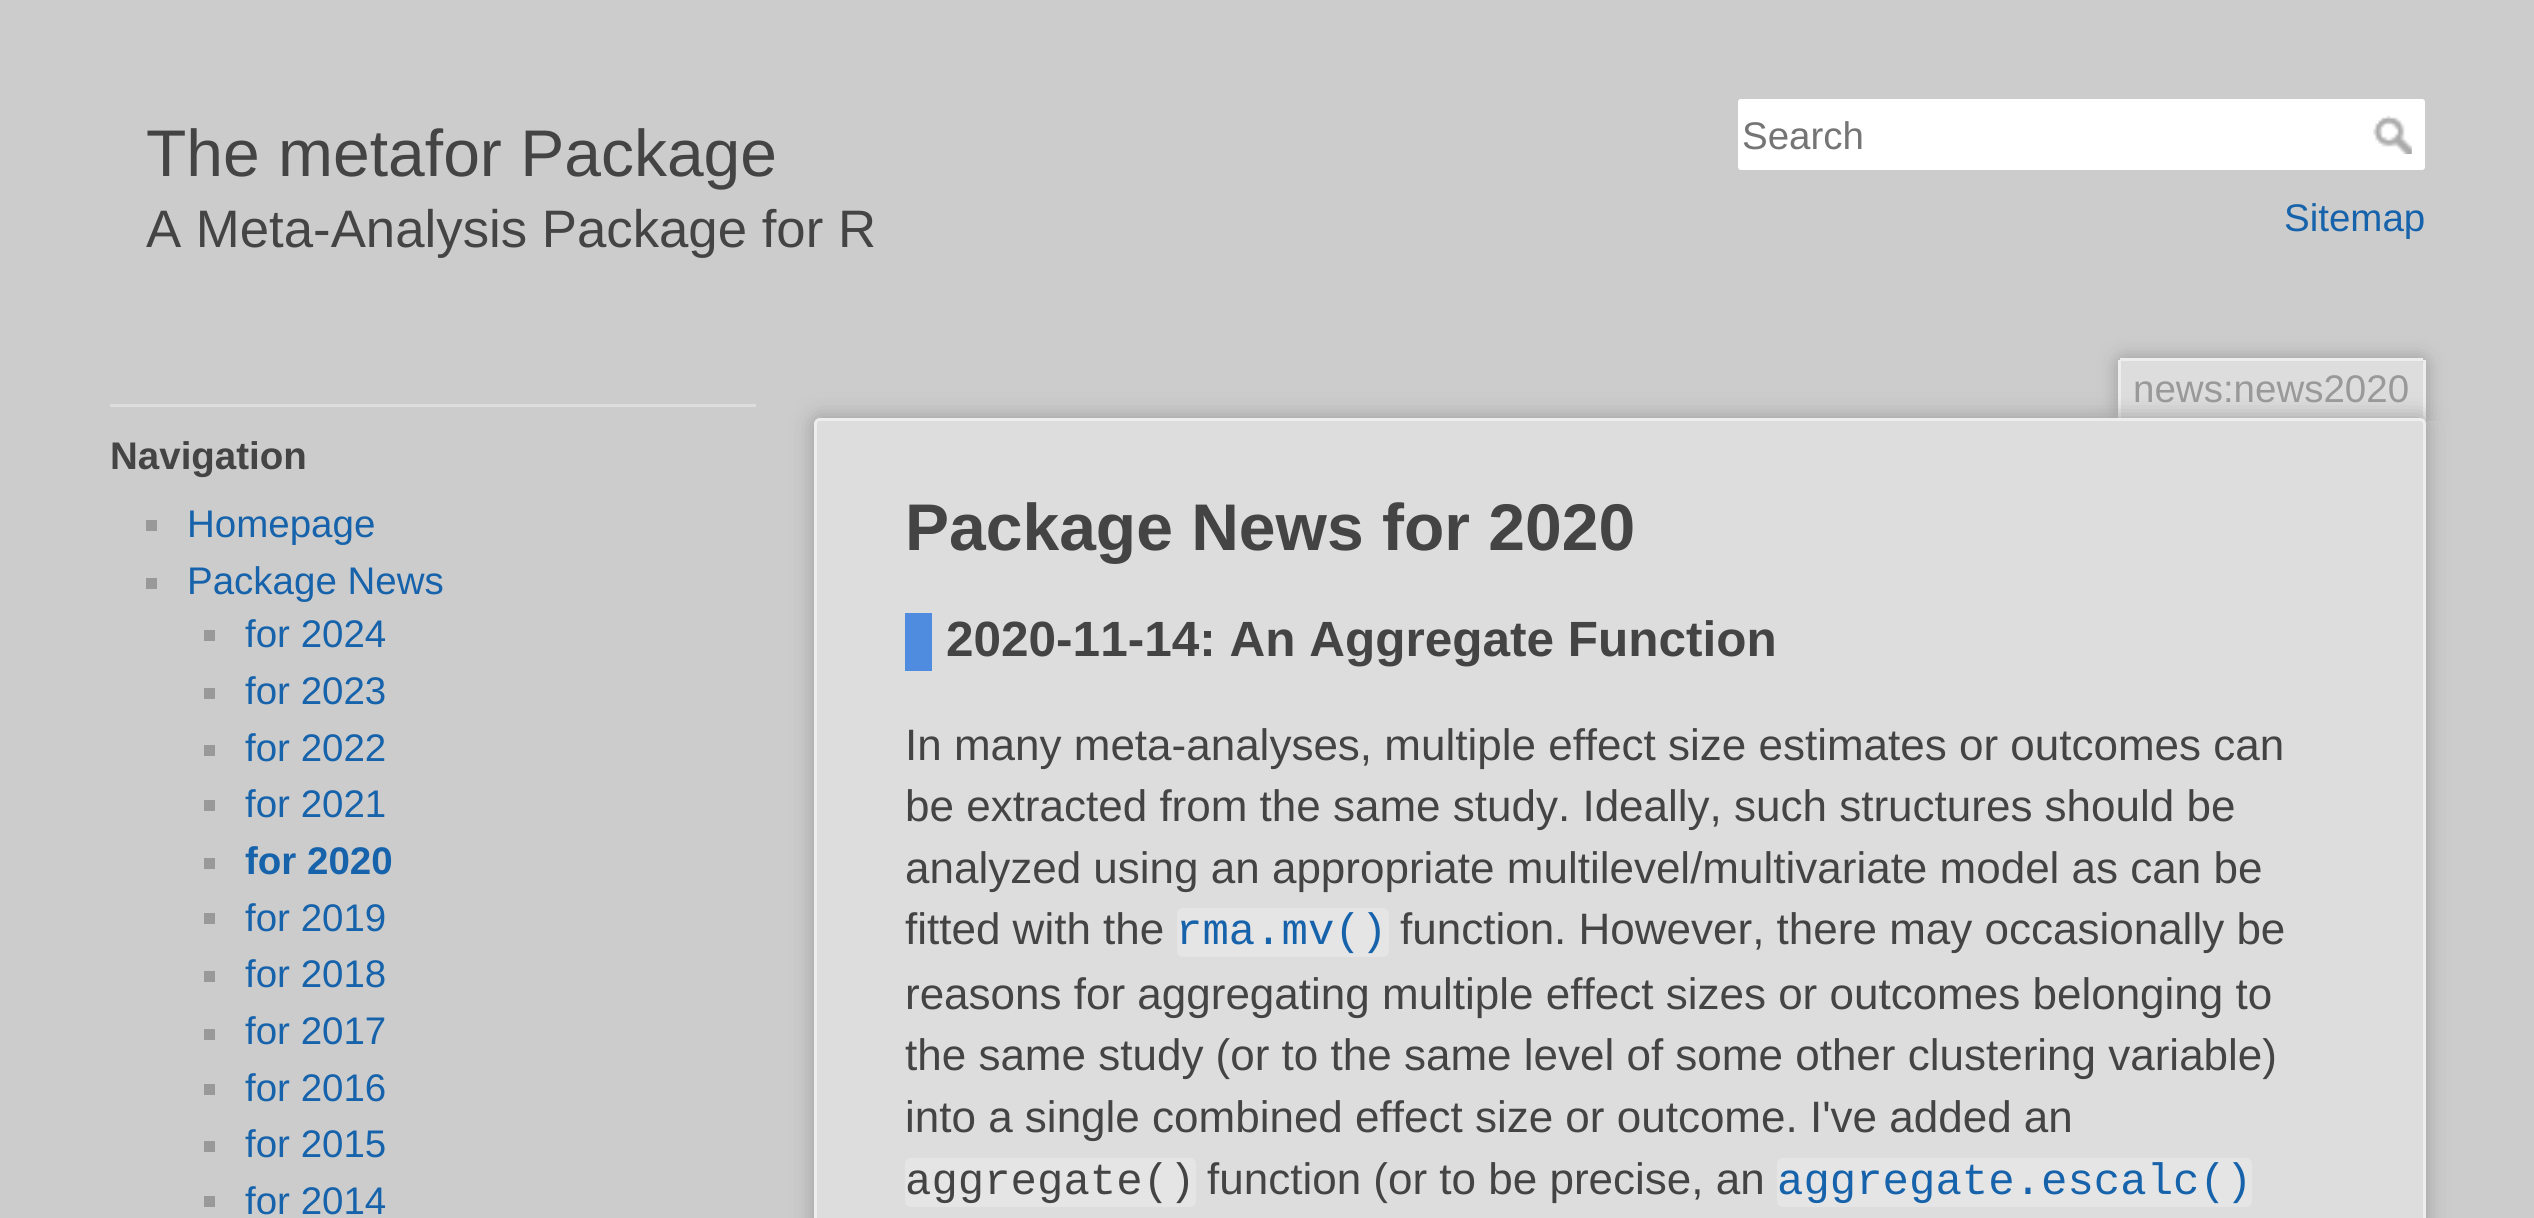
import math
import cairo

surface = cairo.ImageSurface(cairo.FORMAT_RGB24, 2534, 1218)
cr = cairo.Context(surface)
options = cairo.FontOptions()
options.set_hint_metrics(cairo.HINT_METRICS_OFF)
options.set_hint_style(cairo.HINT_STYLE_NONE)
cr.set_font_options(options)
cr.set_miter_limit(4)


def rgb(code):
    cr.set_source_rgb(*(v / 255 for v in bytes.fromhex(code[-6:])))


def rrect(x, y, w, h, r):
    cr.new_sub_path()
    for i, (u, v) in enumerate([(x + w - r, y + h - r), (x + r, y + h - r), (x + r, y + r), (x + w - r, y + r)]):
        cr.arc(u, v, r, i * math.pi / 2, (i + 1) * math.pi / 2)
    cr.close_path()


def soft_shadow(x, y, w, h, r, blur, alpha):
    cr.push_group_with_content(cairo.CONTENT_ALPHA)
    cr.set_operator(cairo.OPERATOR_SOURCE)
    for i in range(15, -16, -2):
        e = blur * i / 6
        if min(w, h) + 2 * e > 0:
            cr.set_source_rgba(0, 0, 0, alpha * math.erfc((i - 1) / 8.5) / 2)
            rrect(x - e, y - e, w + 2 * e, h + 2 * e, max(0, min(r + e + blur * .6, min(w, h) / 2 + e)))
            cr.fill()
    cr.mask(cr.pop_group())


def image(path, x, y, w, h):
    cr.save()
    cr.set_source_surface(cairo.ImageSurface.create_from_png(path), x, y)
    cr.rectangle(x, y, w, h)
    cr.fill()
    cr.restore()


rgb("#cccccc")
cr.paint()
rgb("#ffffff")
rrect(1736.5, 97.5, 690, 74, 4.5)
cr.fill_preserve()
rgb("#cccccc")
cr.set_line_width(3)
cr.stroke()
image("img/1.png", 2373, 115, 39, 39)
for x, y, w, h, color in [
    (110, 404, 646, 3, "#dddddd"),
    (146, 520, 11, 11, "#999999"),
    (146, 578, 11, 11, "#999999"),
    (204, 630, 11, 11, "#999999"),
    (204, 688, 11, 11, "#999999"),
    (204, 745, 11, 11, "#999999"),
    (204, 800, 11, 11, "#999999"),
    (204, 858, 11, 11, "#999999"),
    (204, 913, 11, 11, "#999999"),
    (204, 971, 11, 11, "#999999"),
    (204, 1029, 11, 11, "#999999"),
    (204, 1084, 11, 11, "#999999"),
    (204, 1141, 11, 11, "#999999"),
    (204, 1196, 11, 11, "#999999"),
]:
    rgb(color)
    cr.rectangle(x, y, w, h)
    cr.fill()
cr.save()
cr.rectangle(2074, 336, 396, 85)
cr.clip()
rgb("#999999")
soft_shadow(2118, 358, 308, 63, 6, 9.5, 1)
cr.restore()
rgb("#dddddd")
cr.new_path()
cr.move_to(2123, 360)
cr.line_to(2420, 360)
cr.curve_to(2421.5, 360, 2423, 361.5, 2423, 363)
cr.line_to(2423, 421)
cr.line_to(2120, 421)
cr.line_to(2120, 363)
cr.curve_to(2120, 361.5, 2121.5, 360, 2123, 360)
cr.close_path()
cr.fill()
for x, y, w, h, color in [
    (2120, 358, 303, 3, "#eeeeee"),
    (2423, 360, 3, 61, "#eeeeee"),
    (2118, 360, 3, 61, "#eeeeee"),
]:
    rgb(color)
    cr.rectangle(x, y, w, h)
    cr.fill()
rgb("#999999")
soft_shadow(814, 418, 1612, 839, 6, 11, 1)
rgb("#dddddd")
rrect(815.5, 419.5, 1609, 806, 4.5)
cr.fill_preserve()
rgb("#eeeeee")
cr.stroke()
rgb("#4f8cdf")
cr.rectangle(905, 613, 27, 58)
cr.fill()
rgb("#e5e5e5")
rrect(1177, 908, 212, 49, 6)
cr.fill()
rrect(905, 1158, 291, 49, 6)
cr.fill()
rrect(1777, 1158, 475, 49, 6)
cr.fill()
cr.select_font_face("Liberation Sans")
cr.set_font_size(66)
rgb("#444444")
cr.move_to(146, 176)
cr.show_text("The metafor Package")
cr.set_font_size(52.75)
cr.move_to(146, 247)
cr.show_text("A Meta-Analysis Package for R")
cr.set_font_size(38.5)
rgb("#757575")
cr.move_to(1742, 149)
cr.show_text("Search")
rgb("#1763ab")
cr.move_to(2284, 231)
cr.show_text("Sitemap")
cr.select_font_face("Liberation Sans", cairo.FONT_SLANT_NORMAL, cairo.FONT_WEIGHT_BOLD)
rgb("#444444")
cr.move_to(110, 469)
cr.show_text("Navigation")
cr.select_font_face("Liberation Sans")
rgb("#1763ab")
for x, y, s in [
    (187, 537, "Homepage"),
    (187, 594, "Package News"),
    (245, 647, "for 2024"),
    (245, 704, "for 2023"),
    (245, 761, "for 2022"),
    (245, 817, "for 2021"),
]:
    cr.move_to(x, y)
    cr.show_text(s)
cr.select_font_face("Liberation Sans", cairo.FONT_SLANT_NORMAL, cairo.FONT_WEIGHT_BOLD)
cr.move_to(245, 874)
cr.show_text("for 2020")
cr.select_font_face("Liberation Sans")
for x, y, s in [
    (245, 931, "for 2019"),
    (245, 987, "for 2018"),
    (245, 1044, "for 2017"),
    (245, 1101, "for 2016"),
    (245, 1157, "for 2015"),
    (245, 1214, "for 2014"),
]:
    cr.move_to(x, y)
    cr.show_text(s)
rgb("#999999")
cr.move_to(2133, 402)
cr.show_text("news:news2020")
cr.select_font_face("Liberation Sans", cairo.FONT_SLANT_NORMAL, cairo.FONT_WEIGHT_BOLD)
cr.set_font_size(66)
rgb("#444444")
cr.move_to(905, 550)
cr.show_text("Package News for 2020")
cr.set_font_size(49.5)
cr.move_to(946, 656)
cr.show_text("2020-11-14: An Aggregate Function")
cr.select_font_face("Liberation Sans")
cr.set_font_size(44)
for x, y, s in [
    (905, 760, "In many meta-analyses, multiple effect size estimates or outcomes can"),
    (905, 821, "be extracted from the same study. Ideally, such structures should be"),
    (905, 883, "analyzed using an appropriate multilevel/multivariate model as can be"),
    (905, 944, "fitted with the"),
]:
    cr.move_to(x, y)
    cr.show_text(s)
cr.select_font_face("Liberation Mono")
rgb("#1763ab")
cr.move_to(1176, 944)
cr.show_text("rma.mv()")
cr.select_font_face("Liberation Sans")
rgb("#444444")
for x, y, s in [
    (1400, 944, "function. However, there may occasionally be"),
    (905, 1009, "reasons for aggregating multiple effect sizes or outcomes belonging to"),
    (905, 1070, "the same study (or to the same level of some other clustering variable)"),
    (905, 1132, "into a single combined effect size or outcome. I've added an"),
]:
    cr.move_to(x, y)
    cr.show_text(s)
cr.select_font_face("Liberation Mono")
cr.move_to(905, 1194)
cr.show_text("aggregate()")
cr.select_font_face("Liberation Sans")
cr.move_to(1207, 1194)
cr.show_text("function (or to be precise, an")
cr.select_font_face("Liberation Mono")
rgb("#1763ab")
cr.move_to(1777, 1194)
cr.show_text("aggregate.escalc()")
surface.write_to_png("page.png")
